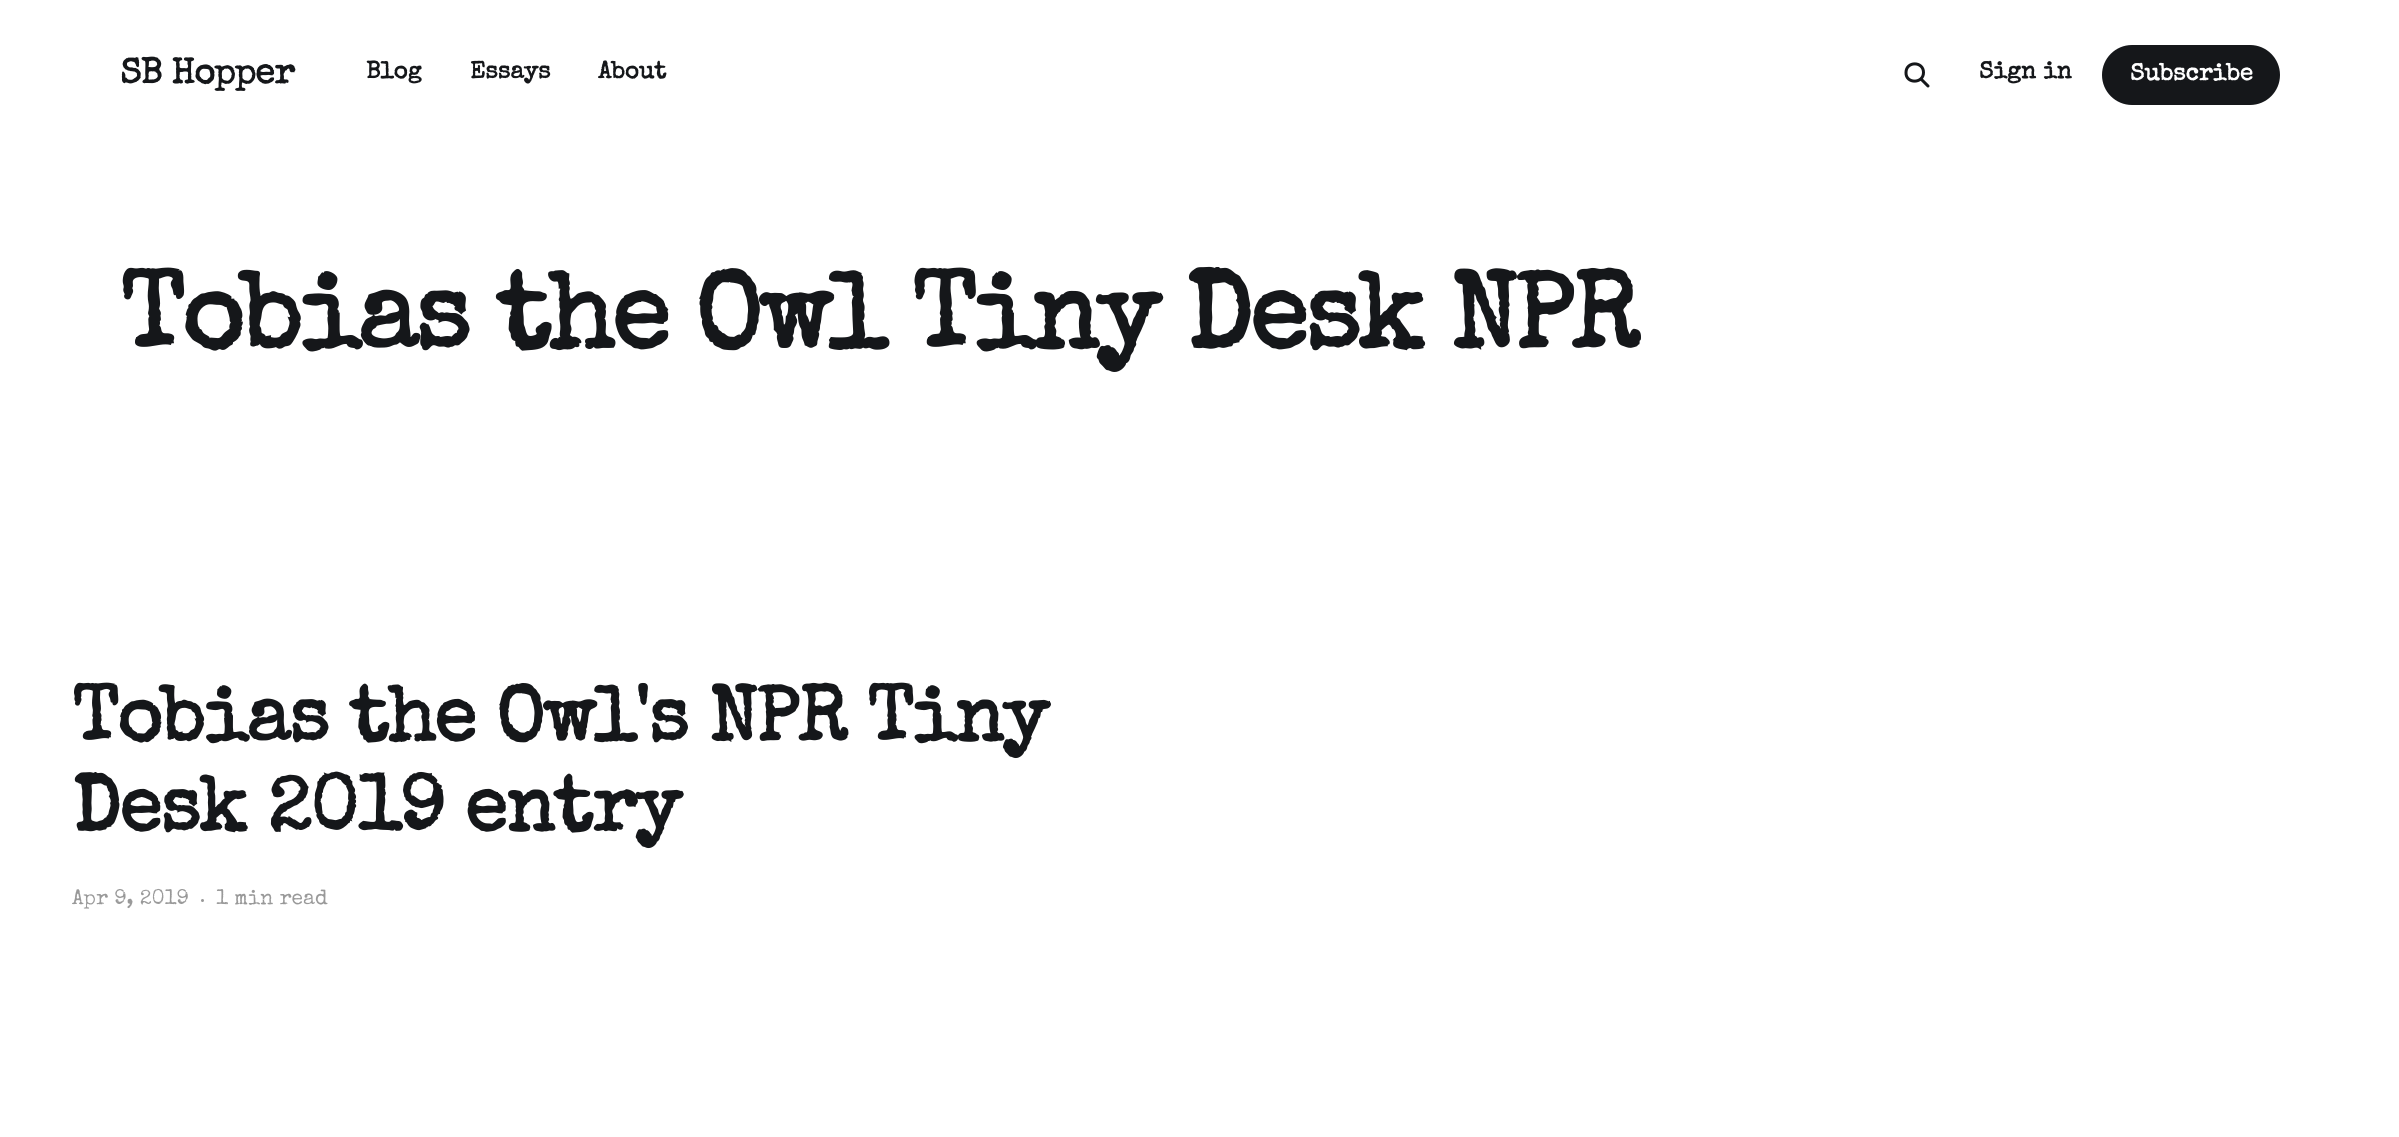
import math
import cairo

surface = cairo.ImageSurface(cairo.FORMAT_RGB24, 2399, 1137)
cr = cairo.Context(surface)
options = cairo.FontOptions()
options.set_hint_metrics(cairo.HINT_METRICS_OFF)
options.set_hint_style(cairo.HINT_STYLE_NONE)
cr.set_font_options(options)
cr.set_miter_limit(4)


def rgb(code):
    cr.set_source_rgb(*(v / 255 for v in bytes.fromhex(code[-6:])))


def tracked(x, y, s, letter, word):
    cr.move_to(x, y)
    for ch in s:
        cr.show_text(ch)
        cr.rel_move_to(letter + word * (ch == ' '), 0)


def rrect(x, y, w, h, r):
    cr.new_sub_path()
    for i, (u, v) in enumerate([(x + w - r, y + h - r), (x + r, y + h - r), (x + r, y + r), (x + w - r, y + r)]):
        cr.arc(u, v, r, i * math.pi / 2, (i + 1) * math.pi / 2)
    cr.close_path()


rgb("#ffffff")
cr.paint()
cr.new_path()
cr.move_to(1928, 86)
cr.line_to(1921, 79)
cr.close_path()
cr.move_to(1923.5, 72.5)
cr.curve_to(1923.5, 84, 1905.5, 84, 1906, 72.5)
cr.curve_to(1906, 61, 1923.5, 61, 1923.5, 72.5)
cr.close_path()
rgb("#15171a")
cr.set_line_width(3)
cr.set_line_cap(cairo.LINE_CAP_ROUND)
cr.set_line_join(cairo.LINE_JOIN_ROUND)
cr.stroke()
rrect(2102, 45, 178, 60, 30)
cr.fill()
rgb("#999999")
cr.arc(202.5, 900.5, 1.5, 0, 2 * math.pi)
cr.fill()
cr.select_font_face("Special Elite", cairo.FONT_SLANT_NORMAL, cairo.FONT_WEIGHT_BOLD)
cr.set_font_size(36)
rgb("#15171a")
tracked(120, 83, "SB Hopper", -0.75, 0)
cr.set_font_size(24)
for x, y, s in [
    (366, 78, "Blog"),
    (470, 78, "Essays"),
    (598, 78, "About"),
    (1979, 78, "Sign in"),
]:
    cr.move_to(x, y)
    cr.show_text(s)
rgb("#ffffff")
cr.move_to(2130, 80)
cr.show_text("Subscribe")
cr.set_font_size(108)
rgb("#15171a")
tracked(120, 347, "Tobias the Owl Tiny Desk NPR", -3.25, 0)
cr.set_font_size(78)
tracked(72, 740, "Tobias the Owl's NPR Tiny", -1.55, 0)
tracked(72, 830, "Desk 2019 entry", -1.55, 0)
cr.select_font_face("Special Elite")
cr.set_font_size(21)
rgb("#999999")
cr.move_to(72, 904)
cr.show_text("Apr 9, 2019")
cr.move_to(216, 904)
cr.show_text("1 min read")
surface.write_to_png("page.png")
